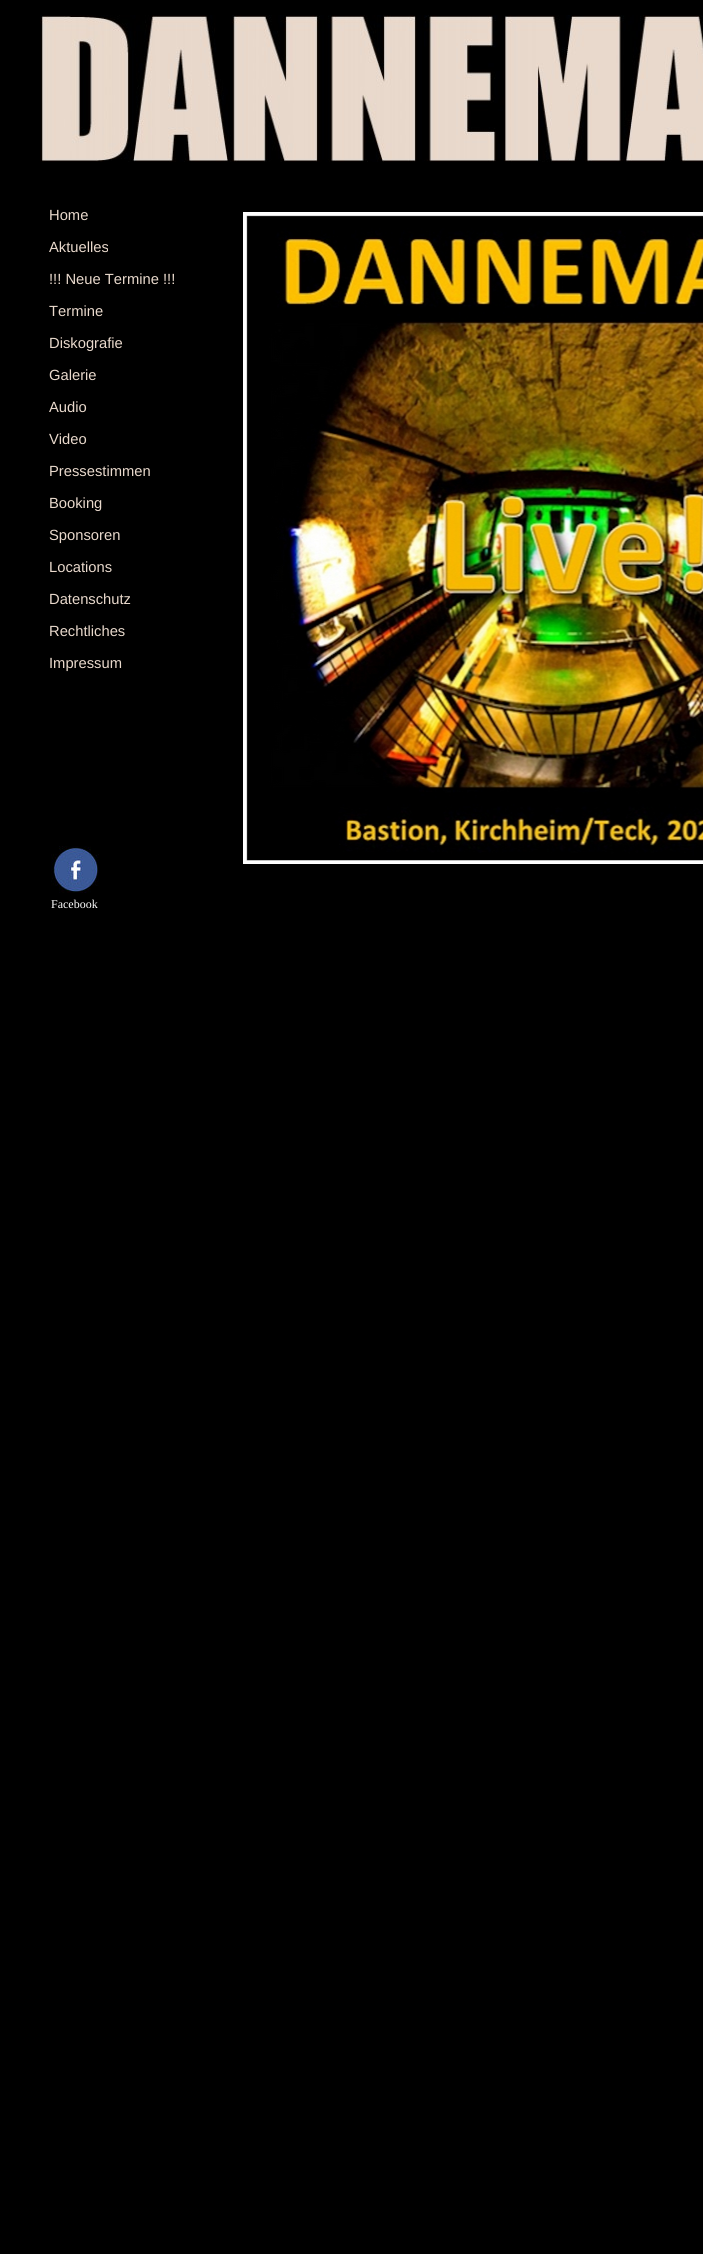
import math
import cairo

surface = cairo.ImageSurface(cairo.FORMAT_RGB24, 703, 2254)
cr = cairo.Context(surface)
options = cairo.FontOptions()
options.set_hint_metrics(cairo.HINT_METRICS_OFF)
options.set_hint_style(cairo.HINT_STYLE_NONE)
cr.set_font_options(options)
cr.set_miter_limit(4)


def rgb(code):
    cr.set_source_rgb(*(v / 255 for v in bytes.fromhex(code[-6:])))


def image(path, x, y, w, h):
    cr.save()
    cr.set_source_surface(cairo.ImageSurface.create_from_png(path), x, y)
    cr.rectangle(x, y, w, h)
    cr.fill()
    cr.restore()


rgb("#000000")
cr.paint()
image("img/1.png", 40, 15, 663, 147)
image("img/2.png", 243, 212, 460, 652)
image("img/3.png", 51, 846, 48, 47)
cr.select_font_face("Liberation Sans")
cr.set_font_size(14.75)
rgb("#e9d9cc")
for x, y, s in [
    (49, 220, "Home"),
    (49, 252, "Aktuelles"),
    (49, 284, "!!! Neue Termine !!!"),
    (49, 316, "Termine"),
    (49, 348, "Diskografie"),
    (49, 380, "Galerie"),
    (49, 412, "Audio"),
    (49, 444, "Video"),
    (49, 476, "Pressestimmen"),
    (49, 508, "Booking"),
    (49, 540, "Sponsoren"),
    (49, 572, "Locations"),
    (49, 604, "Datenschutz"),
    (49, 636, "Rechtliches"),
    (49, 668, "Impressum"),
]:
    cr.move_to(x, y)
    cr.show_text(s)
cr.select_font_face("Liberation Serif")
cr.set_font_size(12)
rgb("#ffffff")
cr.move_to(51, 908)
cr.show_text("Facebook")
surface.write_to_png("page.png")
